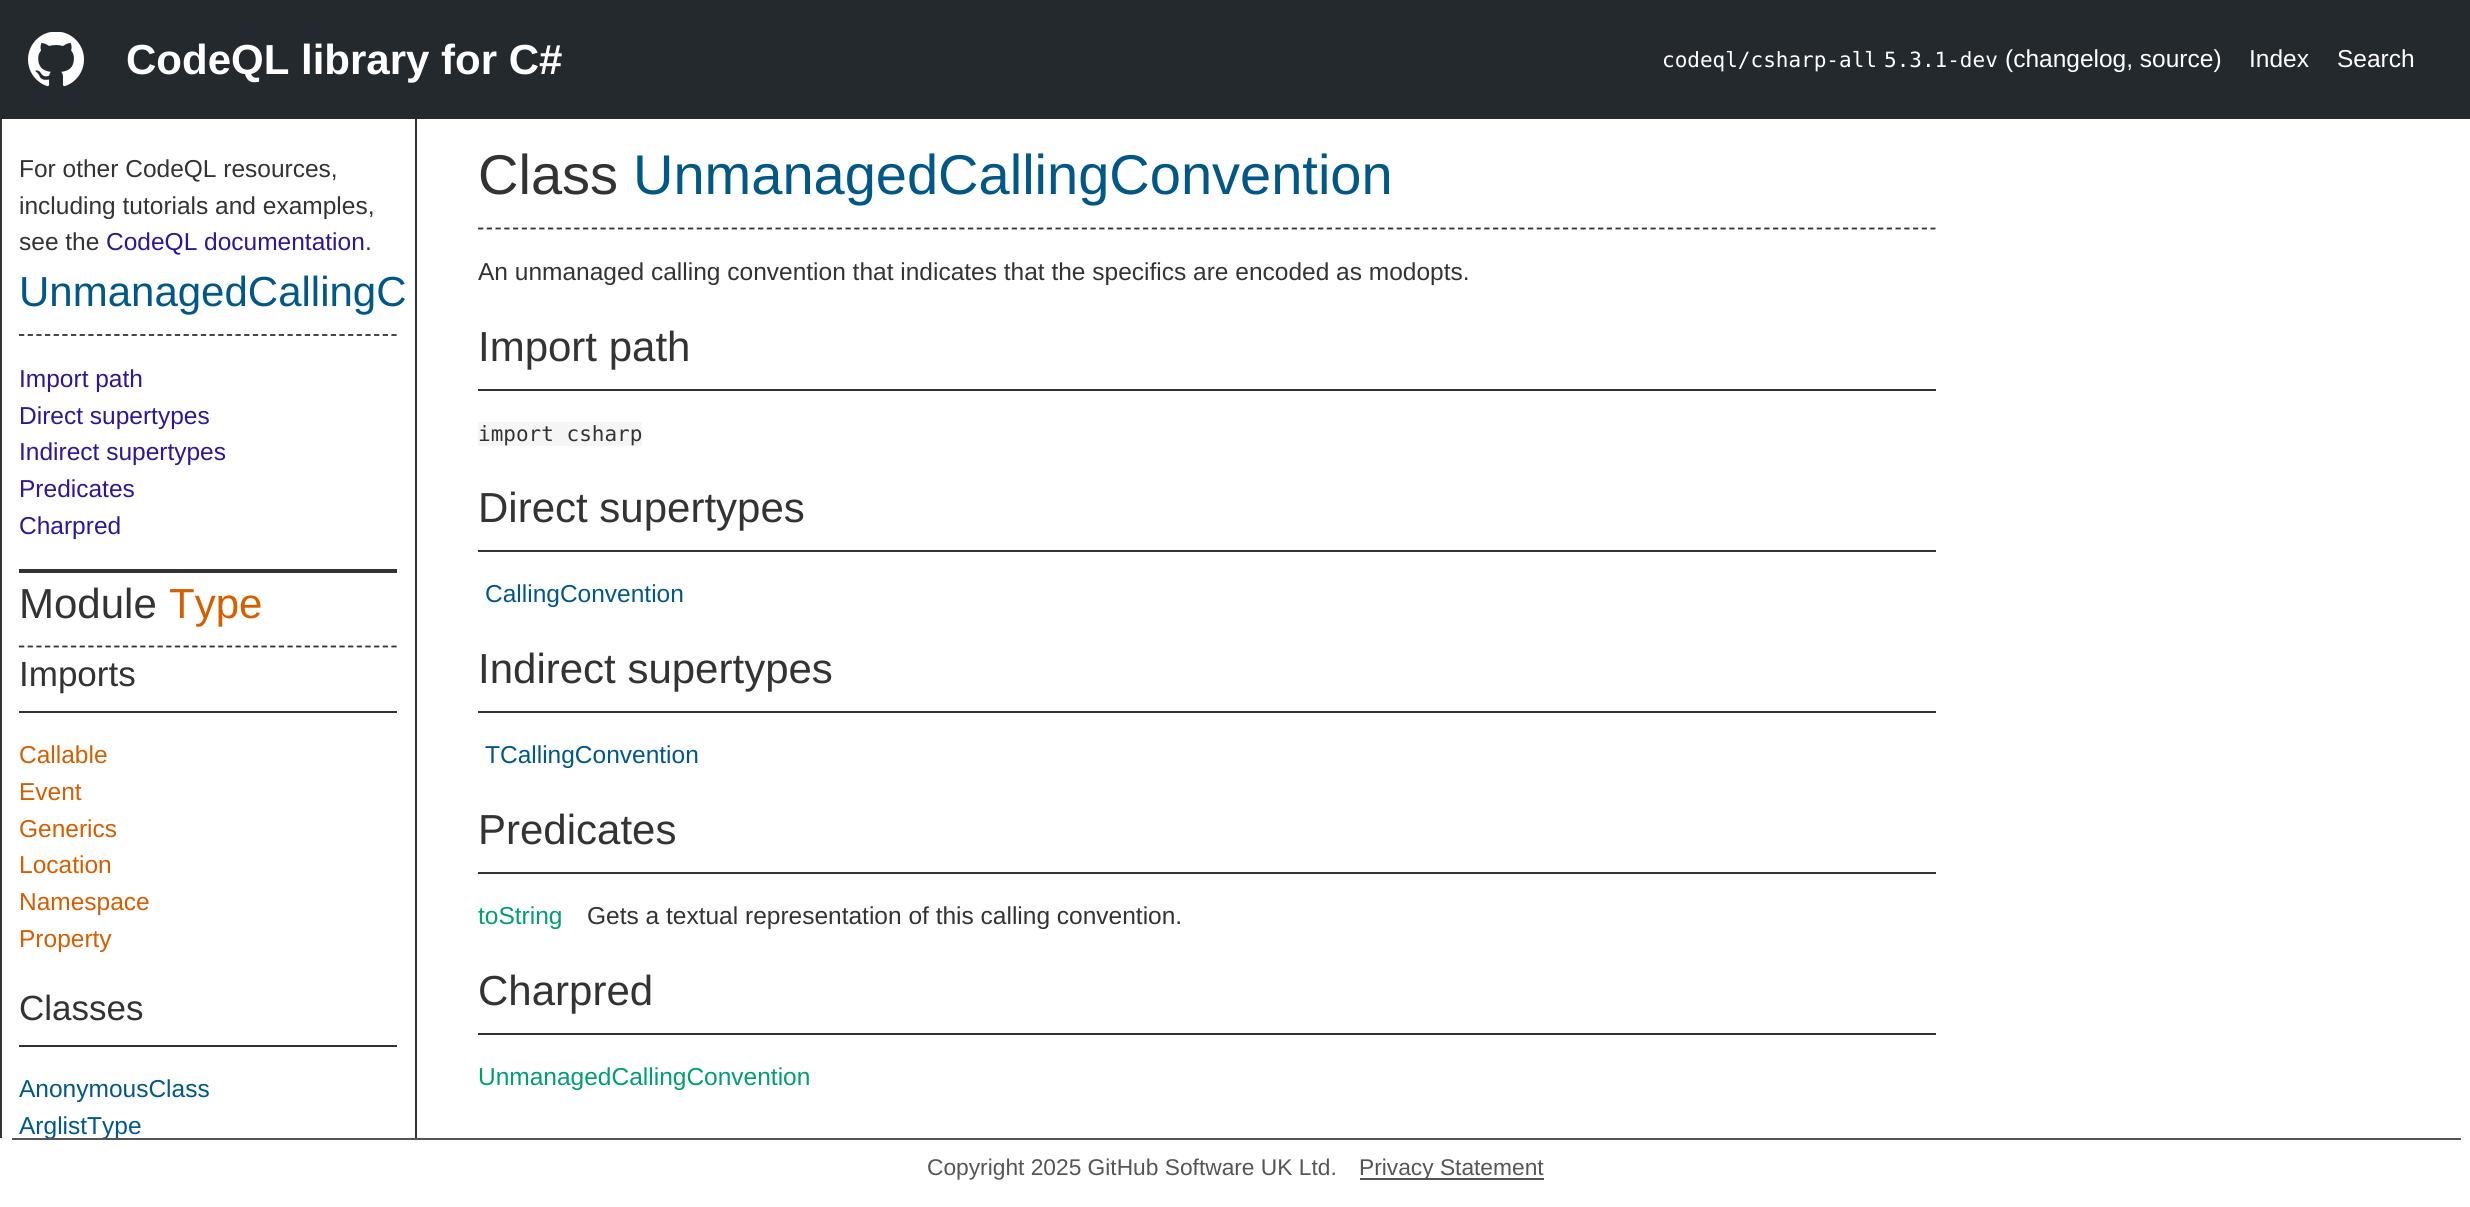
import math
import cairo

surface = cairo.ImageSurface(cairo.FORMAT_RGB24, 2470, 1207)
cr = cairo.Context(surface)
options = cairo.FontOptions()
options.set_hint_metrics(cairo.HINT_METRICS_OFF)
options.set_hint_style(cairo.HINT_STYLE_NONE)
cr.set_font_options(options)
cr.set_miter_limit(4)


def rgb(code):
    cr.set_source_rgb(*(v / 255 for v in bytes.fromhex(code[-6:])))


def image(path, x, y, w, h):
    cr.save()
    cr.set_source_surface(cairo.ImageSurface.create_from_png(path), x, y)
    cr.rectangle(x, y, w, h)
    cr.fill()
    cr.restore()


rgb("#ffffff")
cr.paint()
rgb("#24292e")
cr.rectangle(0, 0, 2470, 119)
cr.fill()
image("img/1.png", 28, 32, 56, 55)
for x, y, w, h, color in [
    (415, 119, 2, 1019, "#333333"),
    (0, 119, 2, 1019, "#333333"),
    (19, 569, 378, 4, "#333333"),
]:
    rgb(color)
    cr.rectangle(x, y, w, h)
    cr.fill()
cr.new_path()
cr.move_to(19, 335)
cr.line_to(397, 335)
cr.set_line_width(1.8)
cr.set_dash([5.25, 3.41])
cr.stroke()
cr.new_path()
cr.move_to(19, 646.5)
cr.line_to(397, 646.5)
cr.stroke()
cr.rectangle(19, 711, 378, 2)
cr.fill()
cr.rectangle(19, 1045, 378, 2)
cr.fill()
cr.new_path()
cr.move_to(478, 228.5)
cr.line_to(1935.5, 228.5)
cr.set_dash([5.25, 3.5])
cr.stroke()
for x, y, w, h, color in [
    (478, 389, 1458, 2, "#333333"),
    (478, 422, 164, 24, "#f5f5f5"),
    (478, 550, 1458, 2, "#333333"),
    (478, 711, 1458, 2, "#333333"),
    (478, 872, 1458, 2, "#333333"),
    (478, 1033, 1458, 2, "#333333"),
    (12, 1138, 2449, 2, "#555555"),
    (1360, 1178, 184, 2, "#555555"),
]:
    rgb(color)
    cr.rectangle(x, y, w, h)
    cr.fill()
cr.select_font_face("Liberation Sans", cairo.FONT_SLANT_NORMAL, cairo.FONT_WEIGHT_BOLD)
cr.set_font_size(42)
rgb("#ffffff")
cr.move_to(126, 74)
cr.show_text("CodeQL library for C#")
cr.select_font_face("DejaVu Sans Mono")
cr.set_font_size(21)
cr.move_to(1662, 67)
cr.show_text("codeql/csharp-all")
cr.move_to(1884, 67)
cr.show_text("5.3.1-dev")
cr.select_font_face("Liberation Sans")
cr.set_font_size(24.5)
for x, y, s in [
    (2005, 67, "(changelog, source)"),
    (2249, 67, "Index"),
    (2337, 67, "Search"),
]:
    cr.move_to(x, y)
    cr.show_text(s)
rgb("#333333")
for x, y, s in [
    (19, 177, "For other CodeQL resources,"),
    (19, 214, "including tutorials and examples,"),
    (19, 250, "see the"),
]:
    cr.move_to(x, y)
    cr.show_text(s)
rgb("#2f1695")
cr.move_to(106, 250)
cr.show_text("CodeQL documentation")
rgb("#333333")
cr.move_to(365, 250)
cr.show_text(".")
cr.set_font_size(42)
rgb("#005788")
cr.move_to(19, 306)
cr.show_text("UnmanagedCallingC")
cr.set_font_size(24.5)
rgb("#2f1695")
for x, y, s in [
    (19, 387, "Import path"),
    (19, 424, "Direct supertypes"),
    (19, 460, "Indirect supertypes"),
    (19, 497, "Predicates"),
    (19, 534, "Charpred"),
]:
    cr.move_to(x, y)
    cr.show_text(s)
cr.set_font_size(42)
rgb("#333333")
cr.move_to(19, 618)
cr.show_text("Module")
rgb("#d55e00")
cr.move_to(169, 618)
cr.show_text("Type")
cr.set_font_size(35)
rgb("#333333")
cr.move_to(19, 686)
cr.show_text("Imports")
cr.set_font_size(24.5)
rgb("#d55e00")
for x, y, s in [
    (19, 763, "Callable"),
    (19, 800, "Event"),
    (19, 837, "Generics"),
    (19, 873, "Location"),
    (19, 910, "Namespace"),
    (19, 947, "Property"),
]:
    cr.move_to(x, y)
    cr.show_text(s)
cr.set_font_size(35)
rgb("#333333")
cr.move_to(19, 1020)
cr.show_text("Classes")
cr.set_font_size(24.5)
rgb("#005788")
cr.move_to(19, 1097)
cr.show_text("AnonymousClass")
cr.save()
cr.rectangle(2, 119, 413, 1019)
cr.clip()
cr.move_to(19, 1134)
cr.show_text("ArglistType")
cr.restore()
cr.set_font_size(56)
rgb("#333333")
cr.move_to(478, 194)
cr.show_text("Class")
rgb("#005788")
cr.move_to(633, 194)
cr.show_text("UnmanagedCallingConvention")
cr.set_font_size(24.5)
rgb("#333333")
cr.move_to(478, 280)
cr.show_text("An unmanaged calling convention that indicates that the specifics are encoded as modopts.")
cr.set_font_size(42)
cr.move_to(478, 361)
cr.show_text("Import path")
cr.select_font_face("DejaVu Sans Mono")
cr.set_font_size(21)
cr.move_to(478, 441)
cr.show_text("import csharp")
cr.select_font_face("Liberation Sans")
cr.set_font_size(42)
cr.move_to(478, 522)
cr.show_text("Direct supertypes")
cr.set_font_size(24.5)
rgb("#005788")
cr.move_to(485, 602)
cr.show_text("CallingConvention")
cr.set_font_size(42)
rgb("#333333")
cr.move_to(478, 683)
cr.show_text("Indirect supertypes")
cr.set_font_size(24.5)
rgb("#005788")
cr.move_to(485, 763)
cr.show_text("TCallingConvention")
cr.set_font_size(42)
rgb("#333333")
cr.move_to(478, 844)
cr.show_text("Predicates")
cr.set_font_size(24.5)
rgb("#009e73")
cr.move_to(478, 924)
cr.show_text("toString")
rgb("#333333")
cr.move_to(587, 924)
cr.show_text("Gets a textual representation of this calling convention.")
cr.set_font_size(42)
cr.move_to(478, 1005)
cr.show_text("Charpred")
cr.set_font_size(24.5)
rgb("#009e73")
cr.move_to(478, 1085)
cr.show_text("UnmanagedCallingConvention")
cr.set_font_size(22.75)
rgb("#555555")
cr.move_to(927, 1175)
cr.show_text("Copyright 2025 GitHub Software UK Ltd.")
cr.move_to(1359, 1175)
cr.show_text("Privacy Statement")
surface.write_to_png("page.png")
